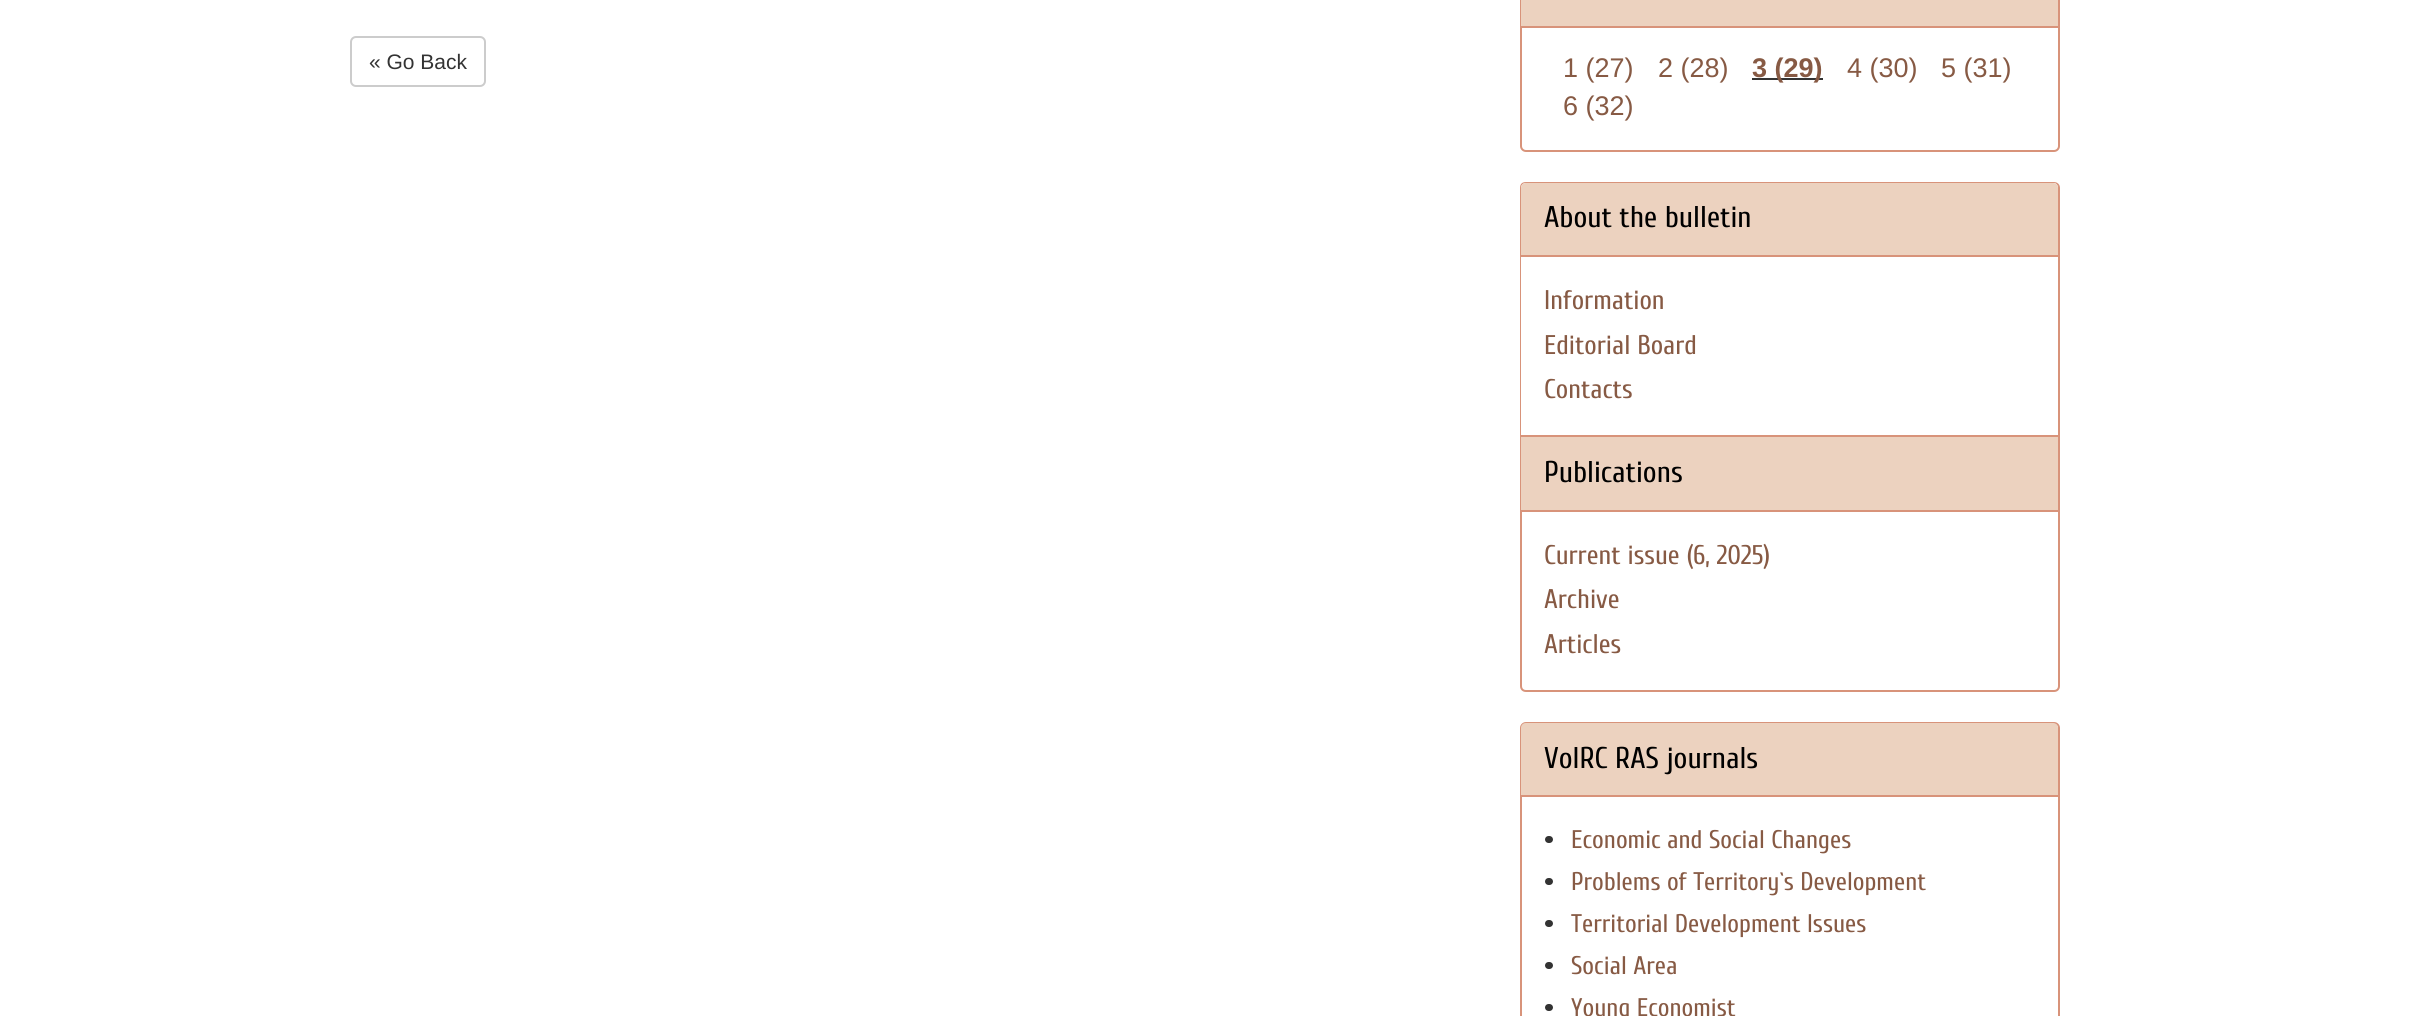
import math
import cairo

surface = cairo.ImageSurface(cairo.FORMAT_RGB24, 2409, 1016)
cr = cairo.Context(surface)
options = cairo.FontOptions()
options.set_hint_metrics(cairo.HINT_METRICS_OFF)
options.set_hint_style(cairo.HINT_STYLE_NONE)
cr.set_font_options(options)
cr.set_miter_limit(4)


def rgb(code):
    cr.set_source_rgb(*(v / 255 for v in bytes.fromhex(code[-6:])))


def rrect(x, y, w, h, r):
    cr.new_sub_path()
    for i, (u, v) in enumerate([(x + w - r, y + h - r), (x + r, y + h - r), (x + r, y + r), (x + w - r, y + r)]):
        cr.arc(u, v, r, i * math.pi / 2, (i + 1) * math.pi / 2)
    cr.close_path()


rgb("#ffffff")
cr.paint()
rrect(351, 37, 134, 49, 5)
rgb("#cccccc")
cr.stroke()
rrect(1521, -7, 538, 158, 5)
rgb("#d8937a")
cr.stroke()
for x, y, w, h, color in [
    (1521, 0, 537, 26, "#ecd2bf"),
    (1521, 26, 537, 2, "#d8937a"),
    (1752, 78, 71, 2, "#333333"),
]:
    rgb(color)
    cr.rectangle(x, y, w, h)
    cr.fill()
rgb("#d8937a")
cr.set_fill_rule(cairo.FILL_RULE_EVEN_ODD)
cr.new_path()
cr.move_to(1526, 182)
cr.line_to(2054, 182)
cr.curve_to(2057, 182, 2060, 184, 2060, 188)
cr.line_to(2060, 435)
cr.line_to(1520, 435)
cr.line_to(1520, 188)
cr.curve_to(1520, 184, 1522, 182, 1526, 182)
cr.close_path()
cr.move_to(1526, 183)
cr.line_to(2054, 183)
cr.curve_to(2056, 183, 2058, 185, 2058, 188)
cr.line_to(2058, 435)
cr.line_to(1521, 435)
cr.line_to(1521, 188)
cr.curve_to(1521, 185, 1523, 183, 1526, 183)
cr.close_path()
cr.fill()
rgb("#ecd2bf")
cr.new_path()
cr.move_to(1526, 183)
cr.line_to(2053, 183)
cr.curve_to(2056, 183, 2058, 185, 2058, 188)
cr.line_to(2058, 257)
cr.line_to(1521, 257)
cr.line_to(1521, 188)
cr.curve_to(1521, 185, 1523, 183, 1526, 183)
cr.close_path()
cr.fill()
rgb("#d8937a")
cr.rectangle(1521, 255, 537, 2)
cr.fill()
cr.new_path()
cr.move_to(1521, 436)
cr.line_to(2059, 436)
cr.line_to(2059, 686)
cr.curve_to(2059, 689, 2057, 691, 2054, 691)
cr.line_to(1526, 691)
cr.curve_to(1523, 691, 1521, 689, 1521, 686)
cr.close_path()
cr.stroke()
rgb("#ecd2bf")
cr.rectangle(1521, 437, 537, 73)
cr.fill()
rgb("#d8937a")
cr.rectangle(1521, 510, 537, 2)
cr.fill()
rrect(1521, 723, 538, 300, 5)
cr.stroke()
rgb("#ecd2bf")
cr.new_path()
cr.move_to(1526, 723)
cr.line_to(2053, 723)
cr.curve_to(2056, 723, 2058, 725, 2058, 728)
cr.line_to(2058, 797)
cr.line_to(1521, 797)
cr.line_to(1521, 728)
cr.curve_to(1521, 725, 1523, 723, 1526, 723)
cr.close_path()
cr.fill()
rgb("#d8937a")
cr.rectangle(1521, 795, 537, 2)
cr.fill()
rgb("#333333")
rrect(1545, 836, 8, 7, 3.5)
cr.fill()
rrect(1545, 878, 8, 7, 3.5)
cr.fill()
rrect(1545, 920, 8, 7, 3.5)
cr.fill()
rrect(1545, 962, 8, 7, 3.5)
cr.fill()
rrect(1545, 1004, 8, 7, 3.5)
cr.fill()
cr.select_font_face("Liberation Sans")
cr.set_font_size(21)
cr.move_to(369, 69)
cr.show_text("« Go Back")
cr.set_font_size(27)
rgb("#875a44")
cr.move_to(1563, 77)
cr.show_text("1 (27)")
cr.move_to(1658, 77)
cr.show_text("2 (28)")
cr.select_font_face("Liberation Sans", cairo.FONT_SLANT_NORMAL, cairo.FONT_WEIGHT_BOLD)
cr.move_to(1752, 77)
cr.show_text("3 (29)")
cr.select_font_face("Liberation Sans")
for x, y, s in [
    (1847, 77, "4 (30)"),
    (1941, 77, "5 (31)"),
    (1563, 115, "6 (32)"),
]:
    cr.move_to(x, y)
    cr.show_text(s)
cr.select_font_face("Cuprum")
cr.set_font_size(30)
rgb("#000000")
cr.move_to(1544, 227)
cr.show_text("About the bulletin")
cr.set_font_size(27)
rgb("#875a44")
for x, y, s in [
    (1544, 309, "Information"),
    (1544, 354, "Editorial Board"),
    (1544, 398, "Contacts"),
]:
    cr.move_to(x, y)
    cr.show_text(s)
cr.set_font_size(30)
rgb("#000000")
cr.move_to(1544, 482)
cr.show_text("Publications")
cr.set_font_size(27)
rgb("#875a44")
for x, y, s in [
    (1544, 564, "Current issue (6, 2025)"),
    (1544, 608, "Archive"),
    (1544, 653, "Articles"),
]:
    cr.move_to(x, y)
    cr.show_text(s)
cr.set_font_size(30)
rgb("#000000")
cr.move_to(1544, 768)
cr.show_text("VolRC RAS journals")
cr.set_font_size(25.5)
rgb("#875a44")
for x, y, s in [
    (1571, 848, "Economic and Social Changes"),
    (1571, 890, "Problems of Territory`s Development"),
    (1571, 932, "Territorial Development Issues"),
    (1571, 974, "Social Area"),
    (1571, 1016, "Young Economist"),
]:
    cr.move_to(x, y)
    cr.show_text(s)
surface.write_to_png("page.png")
